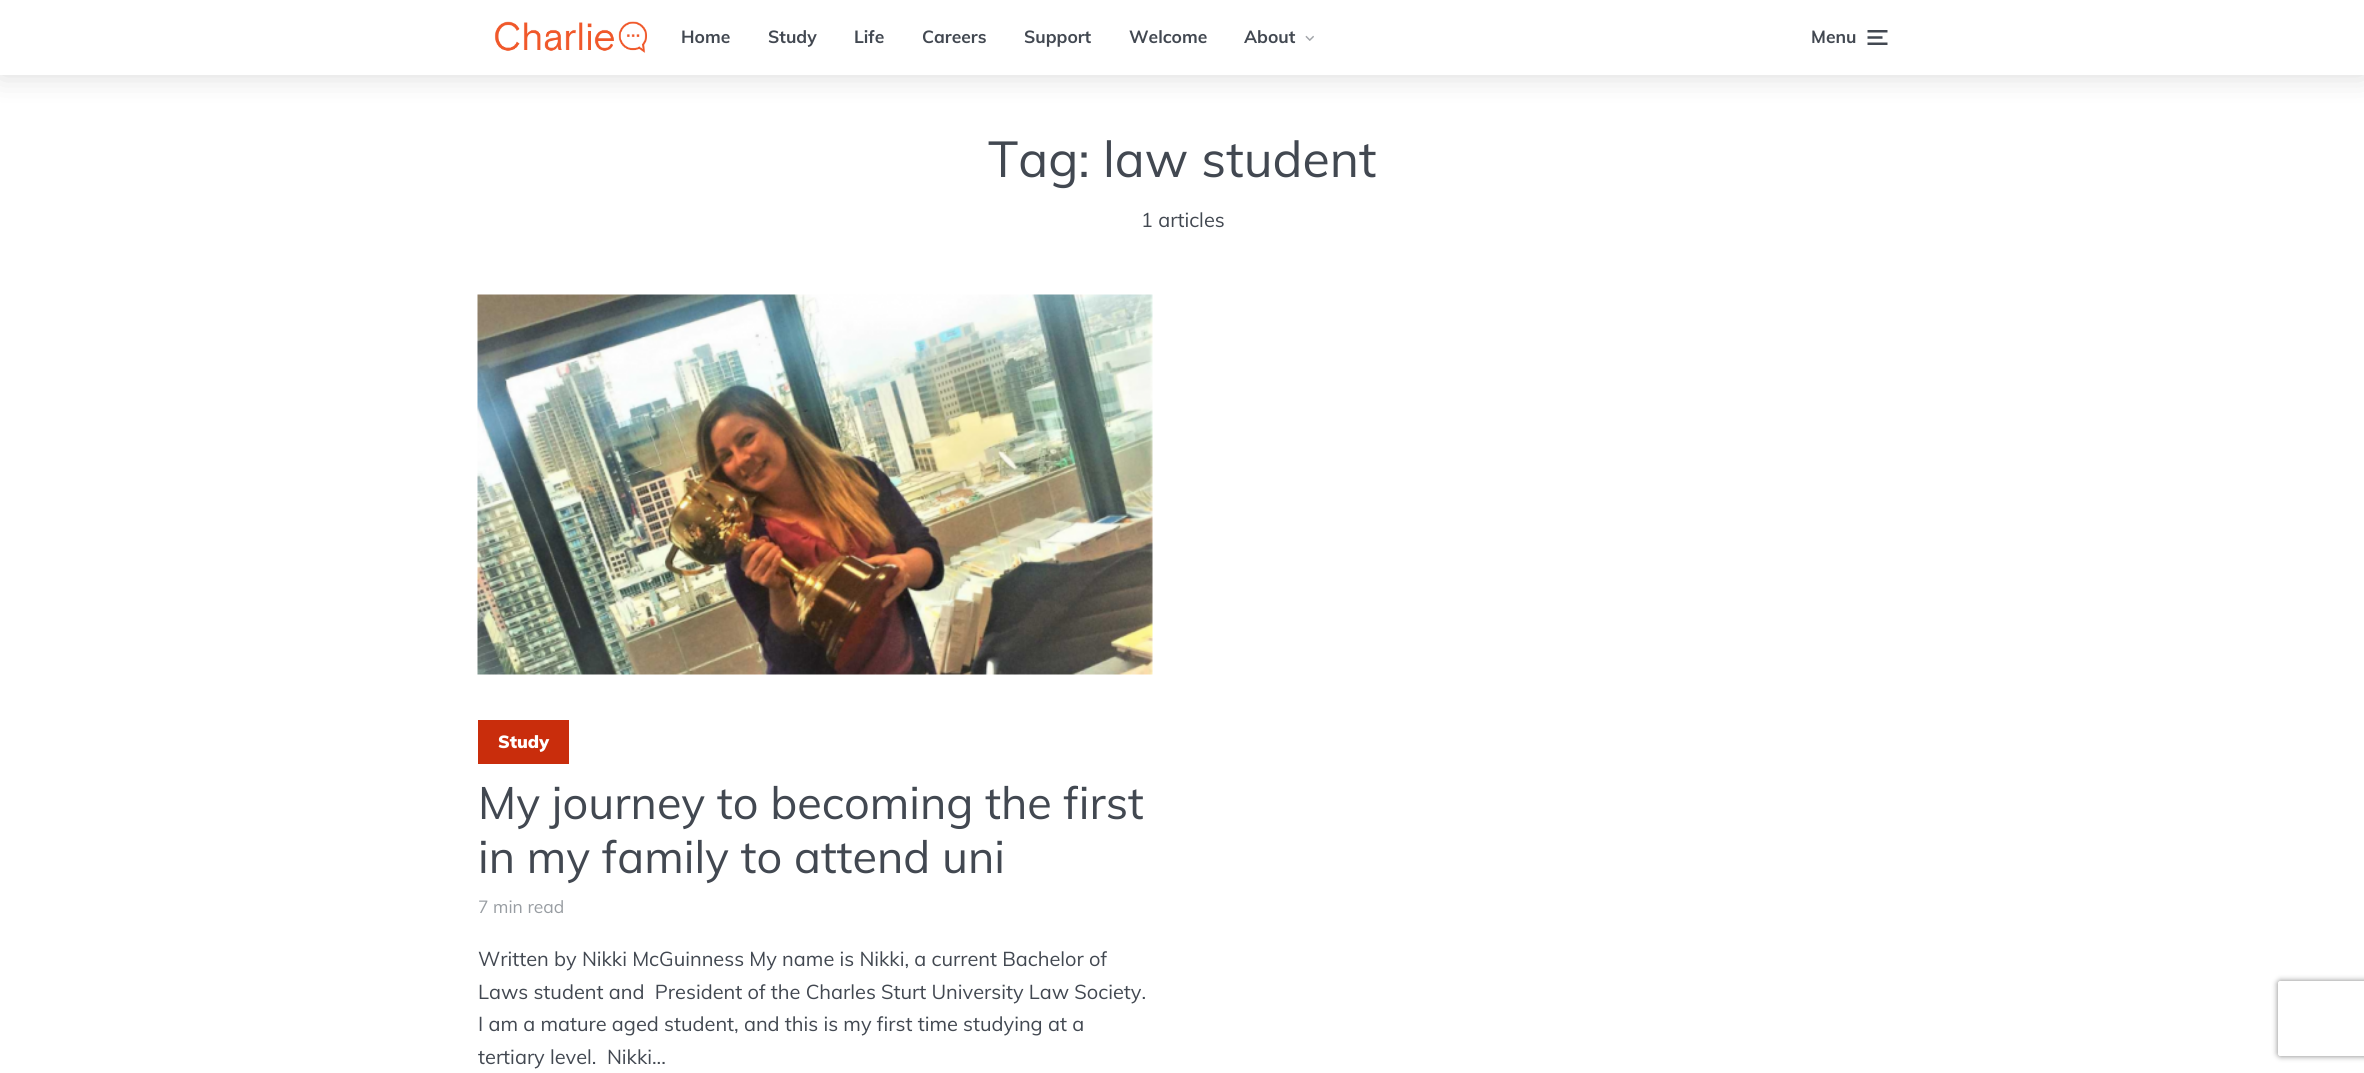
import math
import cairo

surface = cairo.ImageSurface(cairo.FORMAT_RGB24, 2364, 1073)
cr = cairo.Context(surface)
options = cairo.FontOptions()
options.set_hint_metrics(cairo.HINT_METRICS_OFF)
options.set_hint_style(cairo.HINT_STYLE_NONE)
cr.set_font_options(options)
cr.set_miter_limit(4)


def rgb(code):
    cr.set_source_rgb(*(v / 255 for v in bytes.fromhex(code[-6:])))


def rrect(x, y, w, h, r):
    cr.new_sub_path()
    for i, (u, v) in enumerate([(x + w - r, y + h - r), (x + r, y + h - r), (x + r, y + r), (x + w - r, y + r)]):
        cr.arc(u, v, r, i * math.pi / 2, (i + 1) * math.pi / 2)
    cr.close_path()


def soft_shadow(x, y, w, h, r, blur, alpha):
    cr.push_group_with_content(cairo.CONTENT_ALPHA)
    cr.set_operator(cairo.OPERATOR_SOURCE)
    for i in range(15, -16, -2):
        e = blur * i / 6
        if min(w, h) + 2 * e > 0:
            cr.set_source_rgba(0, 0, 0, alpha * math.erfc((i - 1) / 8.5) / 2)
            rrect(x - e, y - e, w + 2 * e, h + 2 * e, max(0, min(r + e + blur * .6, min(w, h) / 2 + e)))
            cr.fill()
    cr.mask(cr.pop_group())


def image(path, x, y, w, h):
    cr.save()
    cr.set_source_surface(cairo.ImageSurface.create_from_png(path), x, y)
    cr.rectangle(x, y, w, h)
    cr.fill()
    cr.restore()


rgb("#ffffff")
cr.paint()
rgb("#000000")
soft_shadow(0, 0, 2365, 75, 0, 15.5, 0.15)
rgb("#ffffff")
cr.rectangle(0, 0, 2364, 75)
cr.fill()
image("img/1.png", 494, 21, 153, 32)
image("img/2.png", 1305, 35, 9, 6)
image("img/3.png", 1867, 30, 21, 15)
image("img/4.png", 477, 294, 676, 381)
rgb("#c92d0c")
cr.rectangle(478, 720, 91, 44)
cr.fill()
cr.save()
cr.set_fill_rule(cairo.FILL_RULE_EVEN_ODD)
cr.new_path()
cr.move_to(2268, 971)
cr.line_to(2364, 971)
cr.line_to(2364, 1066)
cr.line_to(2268, 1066)
cr.close_path()
cr.move_to(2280.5, 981)
cr.line_to(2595.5, 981)
cr.curve_to(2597, 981, 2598, 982, 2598, 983.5)
cr.line_to(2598, 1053.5)
cr.curve_to(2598, 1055, 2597, 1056, 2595.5, 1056)
cr.line_to(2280.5, 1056)
cr.curve_to(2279, 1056, 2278, 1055, 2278, 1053.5)
cr.line_to(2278, 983.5)
cr.curve_to(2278, 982, 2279, 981, 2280.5, 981)
cr.close_path()
cr.clip()
rgb("#808080")
soft_shadow(2278, 981, 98, 75, 2.5, 3, 1)
cr.restore()
cr.select_font_face("Muli", cairo.FONT_SLANT_NORMAL, cairo.FONT_WEIGHT_BOLD)
cr.set_font_size(17.5)
rgb("#424851")
for x, y, s in [
    (681, 43, "Home"),
    (768, 43, "Study"),
    (854, 43, "Life"),
    (922, 43, "Careers"),
    (1024, 43, "Support"),
    (1129, 43, "Welcome"),
    (1244, 43, "About"),
    (1811, 43, "Menu"),
]:
    cr.move_to(x, y)
    cr.show_text(s)
cr.select_font_face("Muli")
cr.set_font_size(50)
cr.move_to(988, 177)
cr.show_text("Tag: law student")
cr.set_font_size(20)
cr.move_to(1141, 227)
cr.show_text("1 articles")
cr.select_font_face("Muli Black")
cr.set_font_size(17.5)
rgb("#ffffff")
cr.move_to(498, 748)
cr.show_text("Study")
cr.select_font_face("Muli")
cr.set_font_size(45)
rgb("#424851")
cr.move_to(478, 819)
cr.show_text("My journey to becoming the first")
cr.move_to(478, 873)
cr.show_text("in my family to attend uni")
cr.set_font_size(17.5)
rgb("#989da2")
cr.move_to(478, 913)
cr.show_text("7 min read")
cr.set_font_size(20)
rgb("#424851")
for x, y, s in [
    (478, 966, "Written by Nikki McGuinness My name is Nikki, a current Bachelor of"),
    (478, 999, "Laws student and  President of the Charles Sturt University Law Society."),
    (478, 1031, "I am a mature aged student, and this is my first time studying at a"),
    (478, 1064, "tertiary level.  Nikki..."),
]:
    cr.move_to(x, y)
    cr.show_text(s)
surface.write_to_png("page.png")
